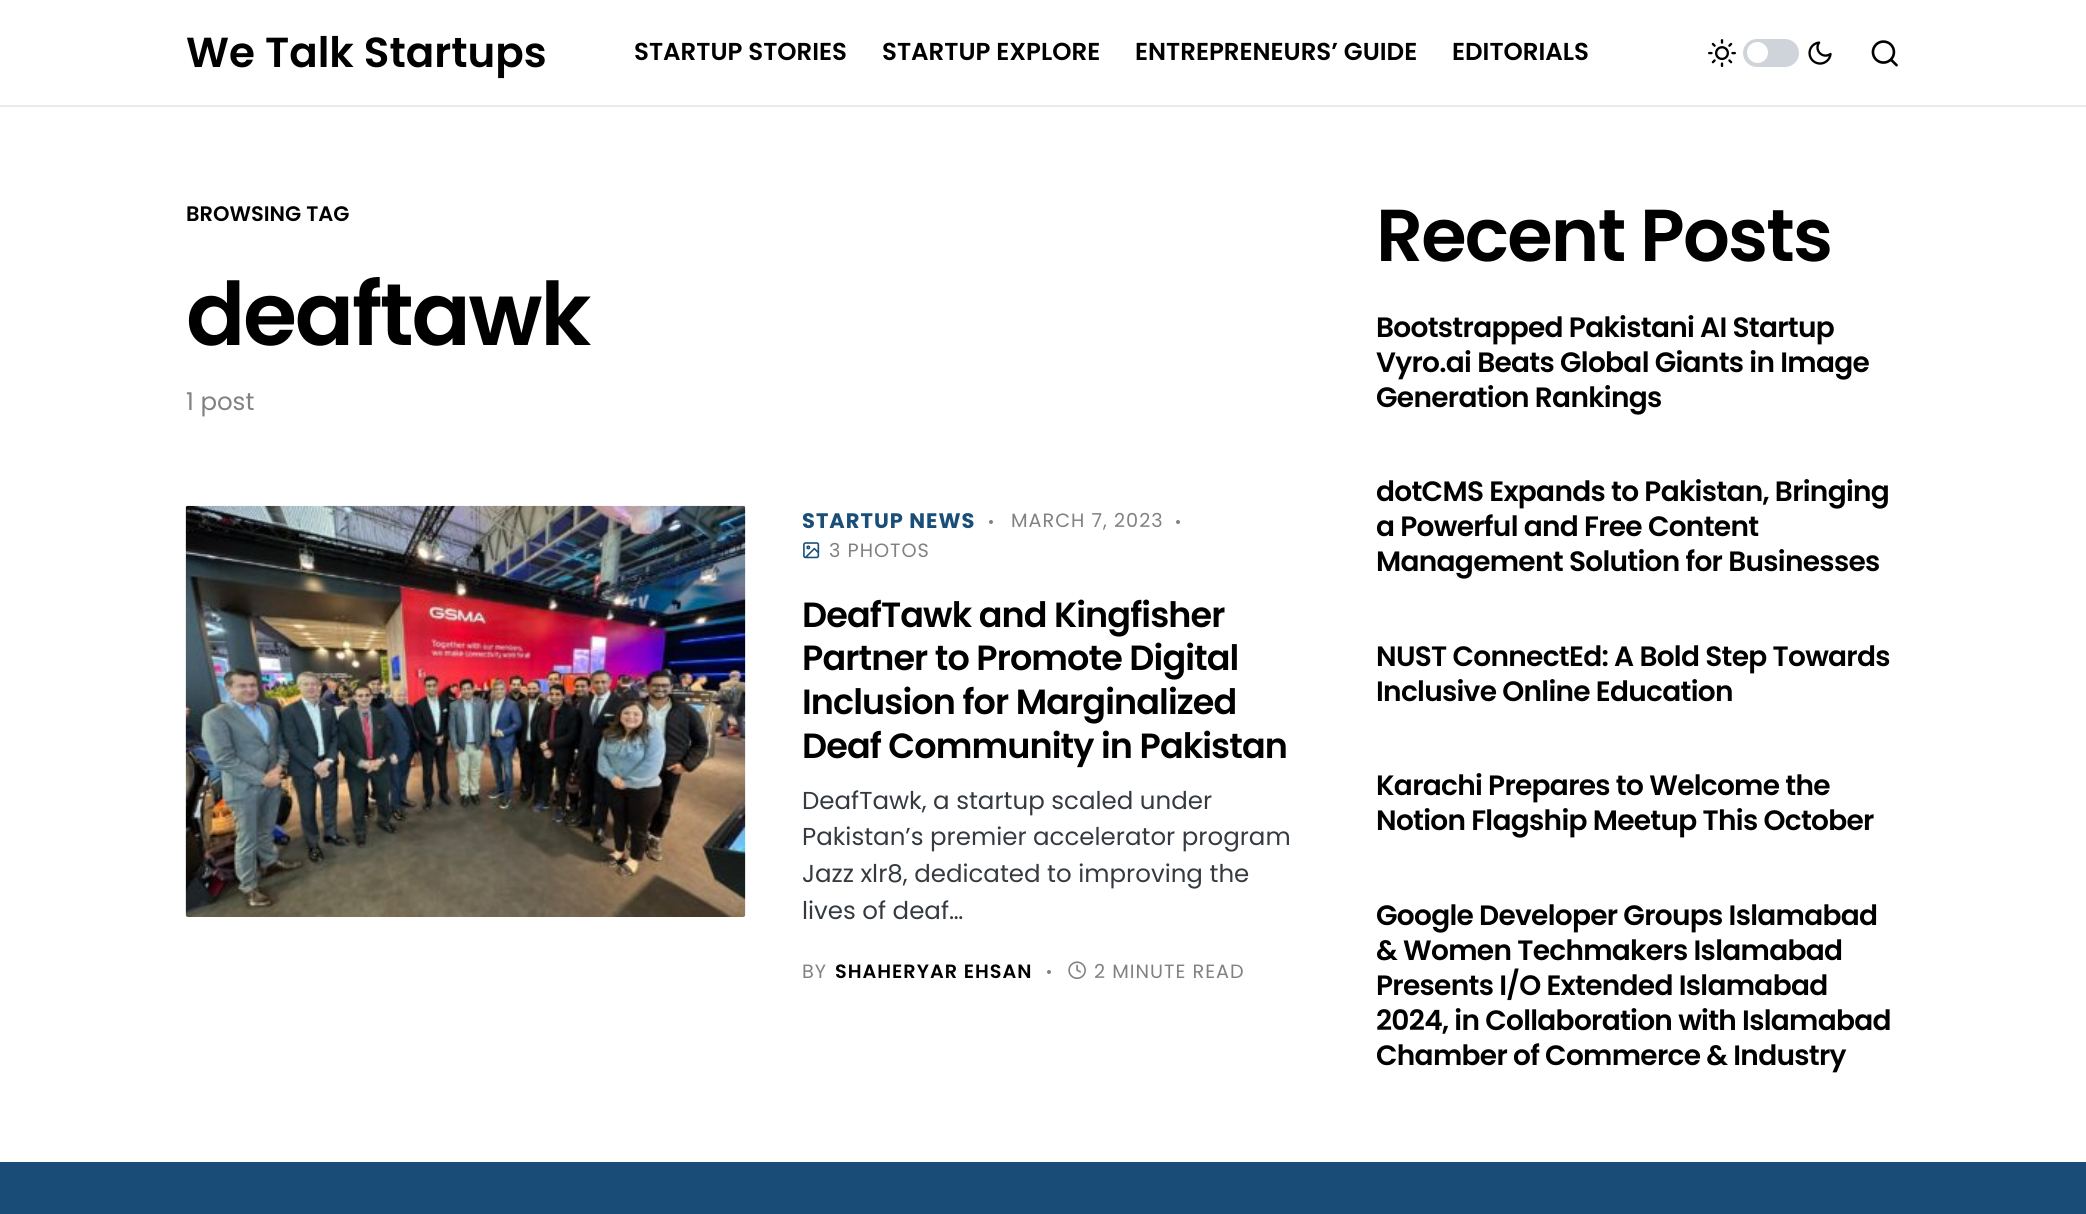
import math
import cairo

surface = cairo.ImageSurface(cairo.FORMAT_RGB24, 2086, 1214)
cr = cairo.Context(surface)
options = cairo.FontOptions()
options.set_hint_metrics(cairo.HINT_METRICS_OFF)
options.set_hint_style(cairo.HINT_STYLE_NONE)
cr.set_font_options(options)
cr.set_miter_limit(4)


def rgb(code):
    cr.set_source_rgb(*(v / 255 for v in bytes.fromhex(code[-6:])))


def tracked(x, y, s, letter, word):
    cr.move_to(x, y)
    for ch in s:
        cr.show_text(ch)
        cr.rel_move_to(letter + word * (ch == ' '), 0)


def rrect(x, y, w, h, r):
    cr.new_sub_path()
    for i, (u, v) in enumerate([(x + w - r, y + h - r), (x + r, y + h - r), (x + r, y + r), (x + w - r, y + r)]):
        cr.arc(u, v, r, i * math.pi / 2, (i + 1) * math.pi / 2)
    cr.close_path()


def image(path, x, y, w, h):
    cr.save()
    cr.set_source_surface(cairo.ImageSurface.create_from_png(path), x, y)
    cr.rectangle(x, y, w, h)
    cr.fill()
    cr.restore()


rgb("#ffffff")
cr.paint()
rgb("#e9ecef")
cr.rectangle(0, 105, 2086, 2)
cr.fill()
image("img/1.png", 1708, 39, 28, 28)
rgb("#ced4da")
rrect(1743, 39, 56, 28, 14)
cr.fill()
rgb("#ffffff")
cr.arc(1757.5, 52.5, 10.5, 0, 2 * math.pi)
cr.fill()
image("img/2.png", 1808, 41, 24, 24)
image("img/3.png", 1871, 40, 27, 27)
image("img/4.png", 185, 505, 561, 412)
rgb("#818181")
cr.arc(991, 522, 2, 0, 2 * math.pi)
cr.fill()
cr.arc(1178, 522, 2, 0, 2 * math.pi)
cr.fill()
image("img/5.png", 803, 542, 17, 17)
cr.arc(1049, 972, 2, 0, 2 * math.pi)
cr.fill()
image("img/6.png", 1068, 961, 18, 18)
rgb("#194d78")
cr.rectangle(0, 1162, 2086, 52)
cr.fill()
cr.select_font_face("Poppins SemiBold")
cr.set_font_size(42)
rgb("#000000")
cr.move_to(186, 67)
cr.show_text("We Talk Startups")
cr.set_font_size(24.5)
for x, y, s in [
    (634, 60, "STARTUP STORIES"),
    (882, 60, "STARTUP EXPLORE"),
    (1135, 60, "ENTREPRENEURS’ GUIDE"),
    (1452, 60, "EDITORIALS"),
]:
    cr.move_to(x, y)
    cr.show_text(s)
cr.set_font_size(21)
cr.move_to(186, 221)
cr.show_text("BROWSING TAG")
cr.set_font_size(87.5)
tracked(186, 345, "deaftawk", -2.25, 0)
cr.select_font_face("Poppins")
cr.set_font_size(24.5)
rgb("#818181")
cr.move_to(186, 410)
cr.show_text("1 post")
cr.select_font_face("Poppins", cairo.FONT_SLANT_NORMAL, cairo.FONT_WEIGHT_BOLD)
cr.set_font_size(21)
rgb("#194e78")
tracked(802, 528, "STARTUP NEWS", 1, 0)
cr.select_font_face("Poppins")
cr.set_font_size(19.25)
rgb("#818181")
tracked(1011, 527, "MARCH 7, 2023", 1, 0)
tracked(829, 557, "3 PHOTOS", 1, 0)
cr.select_font_face("Poppins SemiBold")
cr.set_font_size(35)
rgb("#000000")
for x, y, s in [
    (802, 627, "DeafTawk and Kingfisher"),
    (802, 670, "Partner to Promote Digital"),
    (802, 714, "Inclusion for Marginalized"),
    (802, 758, "Deaf Community in Pakistan"),
]:
    tracked(x, y, s, -0.9, 0)
cr.select_font_face("Poppins")
cr.set_font_size(24.5)
rgb("#343a40")
for x, y, s in [
    (802, 809, "DeafTawk, a startup scaled under"),
    (802, 845, "Pakistan’s premier accelerator program"),
    (802, 882, "Jazz xlr8, dedicated to improving the"),
    (802, 919, "lives of deaf…"),
]:
    cr.move_to(x, y)
    cr.show_text(s)
cr.set_font_size(19.25)
rgb("#818181")
tracked(802, 978, "BY", 1, 0)
cr.select_font_face("Poppins SemiBold")
rgb("#000000")
tracked(835, 978, "SHAHERYAR EHSAN", 1, 0)
cr.select_font_face("Poppins")
rgb("#818181")
tracked(1094, 978, "2 MINUTE READ", 1, 0)
cr.select_font_face("Poppins SemiBold")
cr.set_font_size(73.5)
rgb("#000000")
tracked(1376, 261, "Recent Posts", -1.8, 0)
cr.set_font_size(28)
for x, y, s in [
    (1376, 337, "Bootstrapped Pakistani AI Startup"),
    (1376, 372, "Vyro.ai Beats Global Giants in Image"),
    (1376, 407, "Generation Rankings"),
    (1376, 501, "dotCMS Expands to Pakistan, Bringing"),
    (1376, 536, "a Powerful and Free Content"),
    (1376, 571, "Management Solution for Businesses"),
    (1376, 666, "NUST ConnectEd: A Bold Step Towards"),
    (1376, 701, "Inclusive Online Education"),
    (1376, 795, "Karachi Prepares to Welcome the"),
    (1376, 830, "Notion Flagship Meetup This October"),
    (1376, 925, "Google Developer Groups Islamabad"),
    (1376, 960, "& Women Techmakers Islamabad"),
    (1376, 995, "Presents I/O Extended Islamabad"),
    (1376, 1030, "2024, in Collaboration with Islamabad"),
    (1376, 1065, "Chamber of Commerce & Industry"),
]:
    tracked(x, y, s, -0.7, 0)
surface.write_to_png("page.png")
